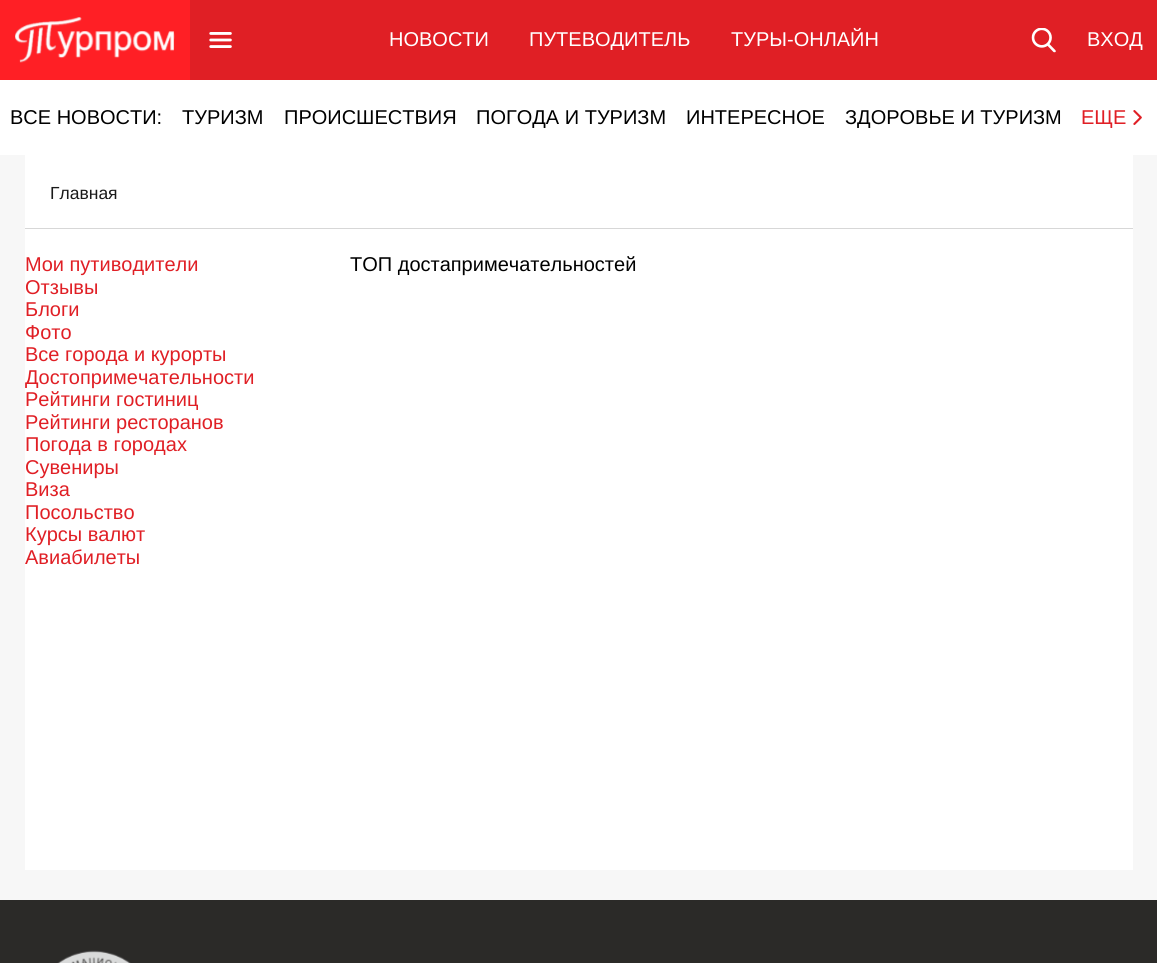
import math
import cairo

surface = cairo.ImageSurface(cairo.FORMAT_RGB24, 1157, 963)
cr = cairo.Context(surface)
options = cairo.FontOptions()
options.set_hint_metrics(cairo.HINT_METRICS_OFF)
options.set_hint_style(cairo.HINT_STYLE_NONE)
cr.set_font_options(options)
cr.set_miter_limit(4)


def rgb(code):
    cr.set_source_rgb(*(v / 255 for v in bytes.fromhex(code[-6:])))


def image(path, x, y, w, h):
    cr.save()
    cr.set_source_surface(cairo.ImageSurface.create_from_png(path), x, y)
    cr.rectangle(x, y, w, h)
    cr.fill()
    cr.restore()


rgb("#f7f7f7")
cr.paint()
rgb("#e01f25")
cr.rectangle(190, 0, 967, 80)
cr.fill()
rgb("#ff1f25")
cr.rectangle(0, 0, 190, 80)
cr.fill()
image("img/1.png", 15, 17, 160, 46)
image("img/2.png", 209, 32, 23, 16)
image("img/3.png", 1031, 28, 25, 25)
rgb("#ffffff")
cr.rectangle(0, 80, 1157, 75)
cr.fill()
image("img/4.png", 1133, 110, 9, 15)
for x, y, w, h, color in [
    (25, 155, 1108, 715, "#ffffff"),
    (25, 228, 1108, 1, "#d7d7d7"),
    (0, 900, 1157, 63, "#2b2a28"),
]:
    rgb(color)
    cr.rectangle(x, y, w, h)
    cr.fill()
image("img/5.png", 57, 950, 74, 13)
cr.select_font_face("Liberation Sans")
cr.set_font_size(20)
rgb("#ffffff")
for x, y, s in [
    (389, 46, "НОВОСТИ"),
    (529, 46, "ПУТЕВОДИТЕЛЬ"),
    (731, 46, "ТУРЫ-ОНЛАЙН"),
    (1087, 46, "ВХОД"),
]:
    cr.move_to(x, y)
    cr.show_text(s)
rgb("#000000")
for x, y, s in [
    (10, 124, "ВСЕ НОВОСТИ:"),
    (182, 124, "ТУРИЗМ"),
    (284, 124, "ПРОИСШЕСТВИЯ"),
    (476, 124, "ПОГОДА И ТУРИЗМ"),
    (686, 124, "ИНТЕРЕСНОЕ"),
    (845, 124, "ЗДОРОВЬЕ И ТУРИЗМ"),
]:
    cr.move_to(x, y)
    cr.show_text(s)
rgb("#e01f25")
cr.move_to(1081, 124)
cr.show_text("ЕЩЕ")
cr.set_font_size(17.5)
rgb("#1a1a1a")
cr.move_to(50, 199)
cr.show_text("Главная")
cr.set_font_size(20)
rgb("#e01f25")
for x, y, s in [
    (25, 271, "Мои путиводители"),
    (25, 294, "Отзывы"),
    (25, 316, "Блоги"),
    (25, 339, "Фото"),
    (25, 361, "Все города и курорты"),
    (25, 384, "Достопримечательности"),
    (25, 406, "Рейтинги гостиниц"),
    (25, 429, "Рейтинги ресторанов"),
    (25, 451, "Погода в городах"),
    (25, 474, "Сувениры"),
    (25, 496, "Виза"),
    (25, 519, "Посольство"),
    (25, 541, "Курсы валют"),
    (25, 564, "Авиабилеты"),
]:
    cr.move_to(x, y)
    cr.show_text(s)
rgb("#000000")
cr.move_to(350, 271)
cr.show_text("ТОП достапримечательностей")
surface.write_to_png("page.png")
